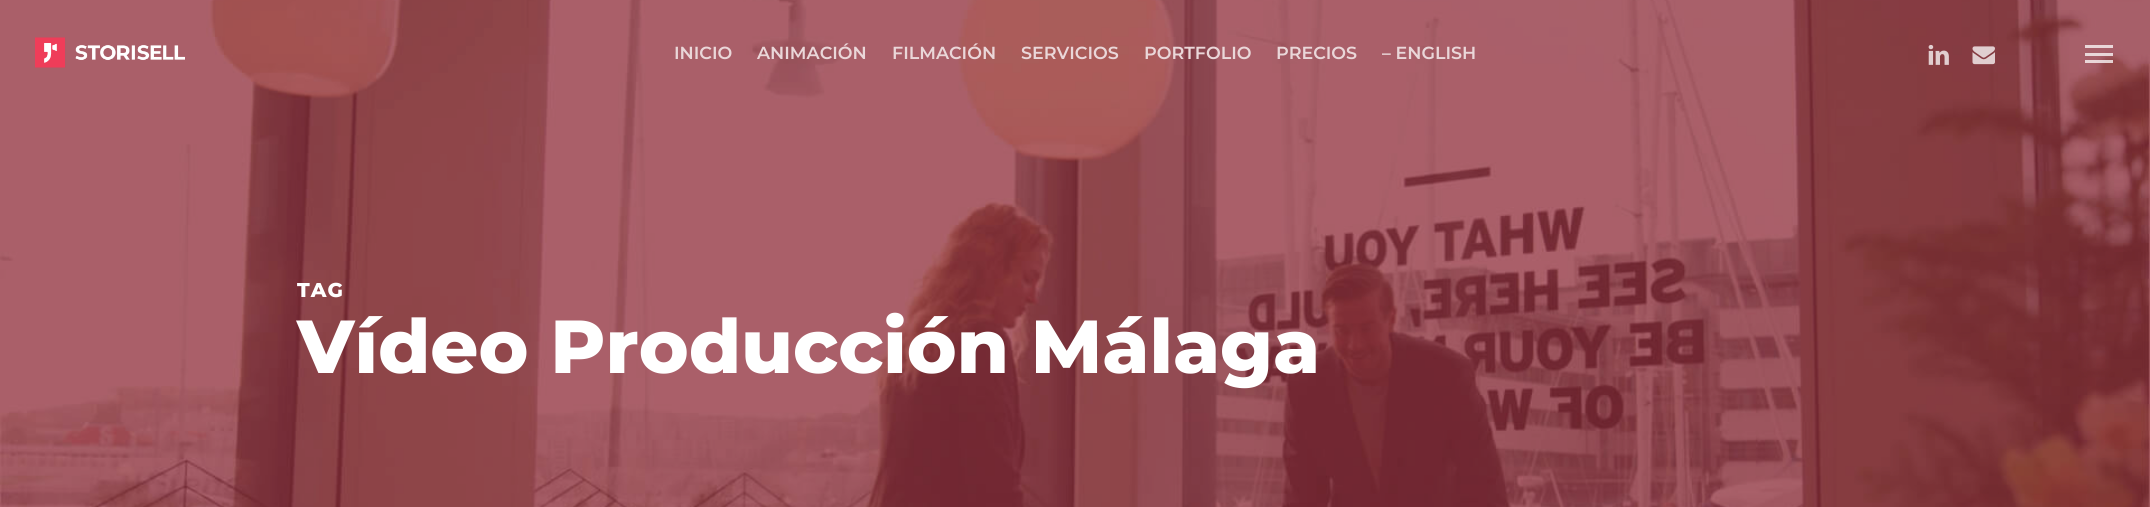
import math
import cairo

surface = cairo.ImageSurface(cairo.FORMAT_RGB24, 2150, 507)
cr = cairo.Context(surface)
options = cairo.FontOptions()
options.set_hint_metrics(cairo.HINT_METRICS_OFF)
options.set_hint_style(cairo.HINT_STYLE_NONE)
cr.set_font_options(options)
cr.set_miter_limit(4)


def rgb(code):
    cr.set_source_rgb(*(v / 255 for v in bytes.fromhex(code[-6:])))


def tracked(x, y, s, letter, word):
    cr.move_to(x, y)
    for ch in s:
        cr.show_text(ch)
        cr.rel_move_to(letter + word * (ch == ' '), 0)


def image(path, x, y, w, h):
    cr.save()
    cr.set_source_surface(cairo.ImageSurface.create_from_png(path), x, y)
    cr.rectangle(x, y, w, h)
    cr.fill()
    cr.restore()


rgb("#ffffff")
cr.paint()
image("img/4.png", 0, 0, 2150, 507)
image("img/1.png", 35, 37, 150, 31)
image("img/2.png", 1928, 44, 21, 21)
image("img/3.png", 1972, 46, 23, 19)
rgb("#e9d7d9")
cr.rectangle(2085, 45, 28, 3)
cr.fill()
cr.set_source_rgba(1, 1, 1, 0.75)
cr.rectangle(2085, 60, 28, 3)
cr.fill()
cr.rectangle(2085, 53, 28, 3)
cr.fill()
cr.select_font_face("Montserrat SemiBold")
cr.set_font_size(17.5)
rgb("#ead7d9")
for x, y, s in [
    (674, 59, "INICIO"),
    (757, 59, "ANIMACIÓN"),
    (892, 59, "FILMACIÓN"),
    (1021, 59, "SERVICIOS"),
    (1144, 59, "PORTFOLIO"),
    (1276, 59, "PRECIOS"),
    (1382, 59, "– ENGLISH"),
]:
    cr.move_to(x, y)
    cr.show_text(s)
cr.select_font_face("Montserrat ExtraBold")
cr.set_font_size(20)
rgb("#ffffff")
tracked(297, 297, "TAG", 1, 0)
cr.set_font_size(75)
cr.move_to(297, 373)
cr.show_text("Vídeo Producción Málaga")
surface.write_to_png("page.png")
